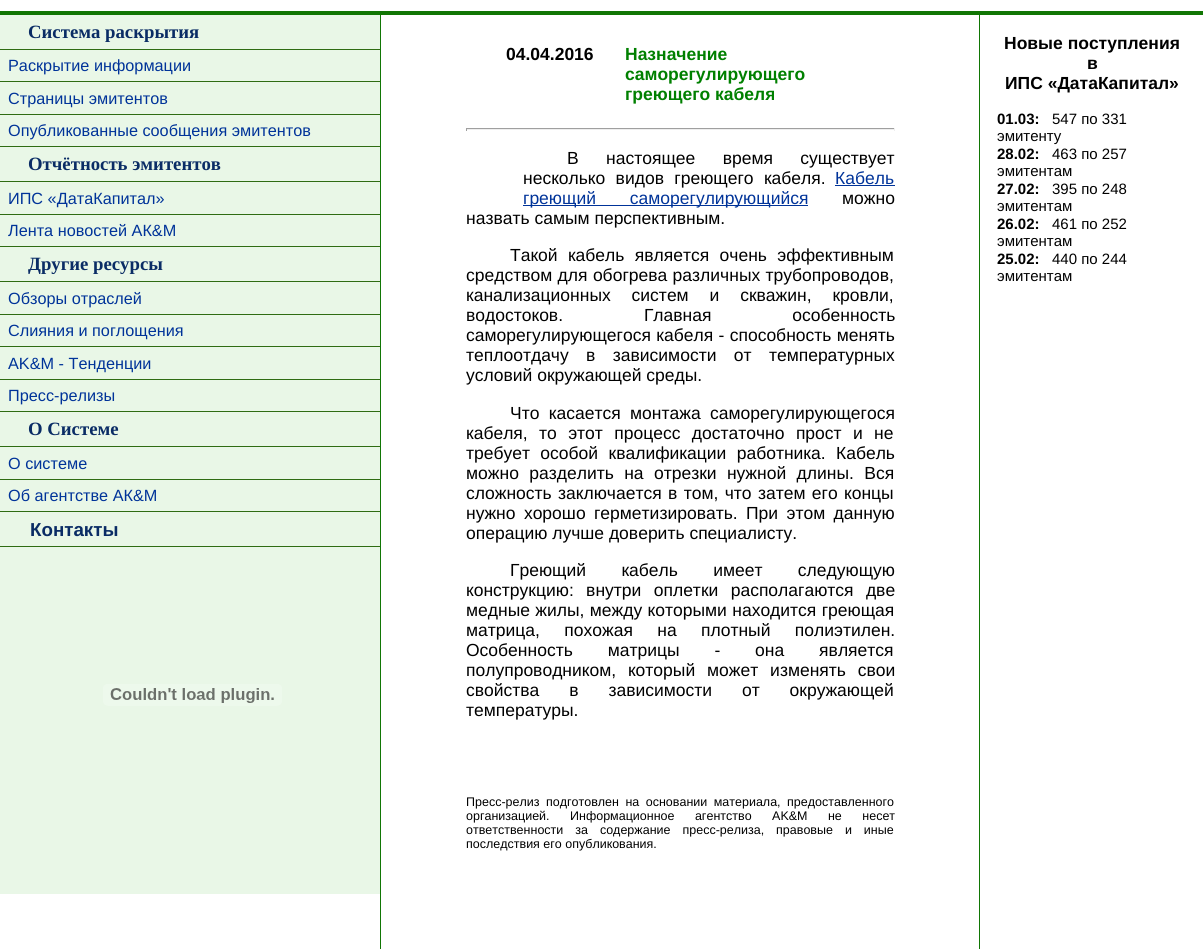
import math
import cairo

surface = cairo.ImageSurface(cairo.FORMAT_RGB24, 1203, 949)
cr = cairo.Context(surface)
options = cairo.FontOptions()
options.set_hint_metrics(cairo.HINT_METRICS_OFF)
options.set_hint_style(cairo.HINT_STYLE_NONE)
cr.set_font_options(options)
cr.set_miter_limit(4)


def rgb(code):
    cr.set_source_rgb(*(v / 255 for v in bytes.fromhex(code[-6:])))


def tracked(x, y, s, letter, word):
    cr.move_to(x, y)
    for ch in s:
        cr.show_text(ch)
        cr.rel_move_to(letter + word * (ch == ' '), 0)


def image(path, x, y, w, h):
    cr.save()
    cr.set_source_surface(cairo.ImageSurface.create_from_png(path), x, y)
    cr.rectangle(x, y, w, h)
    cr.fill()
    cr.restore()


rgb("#ffffff")
cr.paint()
for x, y, w, h, color in [
    (0, 11, 1203, 4, "#117604"),
    (380, 15, 1, 934, "#117604"),
    (0, 15, 380, 879, "#e9f7e7"),
    (0, 49, 380, 1, "#2f6c13"),
    (0, 81, 380, 1, "#2f6c13"),
    (0, 114, 380, 1, "#2f6c13"),
    (0, 146, 380, 1, "#2f6c13"),
    (0, 181, 380, 1, "#2f6c13"),
    (0, 214, 380, 1, "#2f6c13"),
    (0, 246, 380, 1, "#2f6c13"),
    (0, 281, 380, 1, "#2f6c13"),
    (0, 314, 380, 1, "#2f6c13"),
    (0, 346, 380, 1, "#2f6c13"),
    (0, 379, 380, 1, "#2f6c13"),
    (0, 411, 380, 1, "#2f6c13"),
    (0, 446, 380, 1, "#2f6c13"),
    (0, 479, 380, 1, "#2f6c13"),
    (0, 511, 380, 1, "#2f6c13"),
    (0, 546, 380, 1, "#2f6c13"),
]:
    rgb(color)
    cr.rectangle(x, y, w, h)
    cr.fill()
image("img/1.png", 103, 684, 179, 22)
for x, y, w, h, color in [
    (979, 15, 1, 934, "#117604"),
    (466, 128, 429, 1, "#9f9f9f"),
    (894, 128, 1, 3, "#eeeeee"),
    (466, 129, 429, 1, "#eeeeee"),
    (466, 128, 1, 3, "#9f9f9f"),
    (835, 185, 60, 1, "#003399"),
    (523, 205, 285, 1, "#003399"),
]:
    rgb(color)
    cr.rectangle(x, y, w, h)
    cr.fill()
cr.select_font_face("Liberation Serif", cairo.FONT_SLANT_NORMAL, cairo.FONT_WEIGHT_BOLD)
cr.set_font_size(18.75)
rgb("#0a2c65")
cr.move_to(28, 38)
cr.show_text("Система раскрытия")
cr.select_font_face("Liberation Sans")
cr.set_font_size(16.25)
rgb("#003399")
for x, y, s in [
    (8, 71, "Раскрытие информации"),
    (8, 104, "Страницы эмитентов"),
    (8, 136, "Опубликованные сообщения эмитентов"),
]:
    cr.move_to(x, y)
    cr.show_text(s)
cr.select_font_face("Liberation Serif", cairo.FONT_SLANT_NORMAL, cairo.FONT_WEIGHT_BOLD)
cr.set_font_size(18.75)
rgb("#0a2c65")
cr.move_to(28, 170)
cr.show_text("Отчётность эмитентов")
cr.select_font_face("Liberation Sans")
cr.set_font_size(16.25)
rgb("#003399")
cr.move_to(8, 204)
cr.show_text("ИПС «ДатаКапитал»")
cr.move_to(8, 236)
cr.show_text("Лента новостей АК&М")
cr.select_font_face("Liberation Serif", cairo.FONT_SLANT_NORMAL, cairo.FONT_WEIGHT_BOLD)
cr.set_font_size(18.75)
rgb("#0a2c65")
cr.move_to(28, 270)
cr.show_text("Другие ресурсы")
cr.select_font_face("Liberation Sans")
cr.set_font_size(16.25)
rgb("#003399")
for x, y, s in [
    (8, 304, "Обзоры отраслей"),
    (8, 336, "Слияния и поглощения"),
    (8, 369, "AK&M - Тенденции"),
    (8, 401, "Пресс-релизы"),
]:
    cr.move_to(x, y)
    cr.show_text(s)
cr.select_font_face("Liberation Serif", cairo.FONT_SLANT_NORMAL, cairo.FONT_WEIGHT_BOLD)
cr.set_font_size(18.75)
rgb("#0a2c65")
cr.move_to(28, 435)
cr.show_text("О Системе")
cr.select_font_face("Liberation Sans")
cr.set_font_size(16.25)
rgb("#003399")
cr.move_to(8, 469)
cr.show_text("О системе")
cr.move_to(8, 501)
cr.show_text("Об агентстве АК&М")
cr.select_font_face("Liberation Sans", cairo.FONT_SLANT_NORMAL, cairo.FONT_WEIGHT_BOLD)
cr.set_font_size(18.75)
rgb("#0a2c65")
cr.move_to(30, 536)
cr.show_text("Контакты")
cr.set_font_size(17.5)
rgb("#000000")
cr.move_to(506, 60)
cr.show_text("04.04.2016")
rgb("#008000")
for x, y, s in [
    (625, 60, "Назначение"),
    (625, 80, "саморегулирующего"),
    (625, 100, "греющего кабеля"),
]:
    cr.move_to(x, y)
    cr.show_text(s)
cr.select_font_face("Liberation Sans")
rgb("#000000")
tracked(567, 164, "В настоящее время существует", 0, 22.5)
tracked(523, 184, "несколько видов греющего кабеля.", 0, 5.5)
rgb("#003399")
cr.move_to(835, 184)
cr.show_text("Кабель")
tracked(523, 204, "греющий саморегулирующийся", 0, 29)
rgb("#000000")
cr.move_to(842, 204)
cr.show_text("можно")
cr.move_to(466, 224)
cr.show_text("назвать самым перспективным.")
tracked(510, 261, "Такой кабель является очень эффективным", 0, 5.5)
tracked(466, 281, "средством для обогрева различных трубопроводов,", 0, 0.5)
tracked(466, 301, "канализационных систем и скважин, кровли,", 0, 16)
tracked(466, 321, "водостоков. Главная особенность", 0, 76)
tracked(466, 341, "саморегулирующегося кабеля - способность менять", 0, 0.5)
tracked(466, 361, "теплоотдачу в зависимости от температурных", 0, 12.5)
cr.move_to(466, 381)
cr.show_text("условий окружающей среды.")
tracked(510, 419, "Что касается монтажа саморегулирующегося", 0, 4.5)
tracked(466, 439, "кабеля, то этот процесс достаточно прост и не", 0, 6.5)
tracked(466, 459, "требует особой квалификации работника. Кабель", 0, 5.5)
tracked(466, 479, "можно разделить на отрезки нужной длины. Вся", 0, 5.5)
tracked(466, 499, "сложность заключается в том, что затем его концы", 0, 1.5)
tracked(466, 519, "нужно хорошо герметизировать. При этом данную", 0, 3.5)
cr.move_to(466, 539)
cr.show_text("операцию лучше доверить специалисту.")
tracked(510, 576, "Греющий кабель имеет следующую", 0, 30.5)
tracked(466, 596, "конструкцию: внутри оплетки располагаются две", 0, 7.5)
tracked(466, 616, "медные жилы, между которыми находится греющая", 0, 0.5)
tracked(466, 636, "матрица, похожая на плотный полиэтилен.", 0, 19.5)
tracked(466, 656, "Особенность матрицы - она является", 0, 30)
tracked(466, 676, "полупроводником, который может изменять свои", 0, 7)
tracked(466, 696, "свойства в зависимости от окружающей", 0, 25)
cr.move_to(466, 716)
cr.show_text("температуры.")
cr.set_font_size(12.5)
tracked(466, 806, "Пресс-релиз подготовлен на основании материала, предоставленного", 0, 3)
tracked(466, 820, "организацией. Информационное агентство AK&M не несет", 0, 17)
tracked(466, 834, "ответственности за содержание пресс-релиза, правовые и иные", 0, 8.5)
cr.move_to(466, 848)
cr.show_text("последствия его опубликования.")
cr.select_font_face("Liberation Sans", cairo.FONT_SLANT_NORMAL, cairo.FONT_WEIGHT_BOLD)
cr.set_font_size(17.5)
for x, y, s in [
    (1004, 49, "Новые поступления"),
    (1087, 69, "в"),
    (1005, 89, "ИПС «ДатаКапитал»"),
]:
    cr.move_to(x, y)
    cr.show_text(s)
cr.set_font_size(15)
cr.move_to(997, 124)
cr.show_text("01.03:")
cr.select_font_face("Liberation Sans")
cr.move_to(1052, 124)
cr.show_text("547 по 331")
cr.move_to(997, 141)
cr.show_text("эмитенту")
cr.select_font_face("Liberation Sans", cairo.FONT_SLANT_NORMAL, cairo.FONT_WEIGHT_BOLD)
cr.move_to(997, 159)
cr.show_text("28.02:")
cr.select_font_face("Liberation Sans")
cr.move_to(1052, 159)
cr.show_text("463 по 257")
cr.move_to(997, 176)
cr.show_text("эмитентам")
cr.select_font_face("Liberation Sans", cairo.FONT_SLANT_NORMAL, cairo.FONT_WEIGHT_BOLD)
cr.move_to(997, 194)
cr.show_text("27.02:")
cr.select_font_face("Liberation Sans")
cr.move_to(1052, 194)
cr.show_text("395 по 248")
cr.move_to(997, 211)
cr.show_text("эмитентам")
cr.select_font_face("Liberation Sans", cairo.FONT_SLANT_NORMAL, cairo.FONT_WEIGHT_BOLD)
cr.move_to(997, 229)
cr.show_text("26.02:")
cr.select_font_face("Liberation Sans")
cr.move_to(1052, 229)
cr.show_text("461 по 252")
cr.move_to(997, 246)
cr.show_text("эмитентам")
cr.select_font_face("Liberation Sans", cairo.FONT_SLANT_NORMAL, cairo.FONT_WEIGHT_BOLD)
cr.move_to(997, 264)
cr.show_text("25.02:")
cr.select_font_face("Liberation Sans")
cr.move_to(1052, 264)
cr.show_text("440 по 244")
cr.move_to(997, 281)
cr.show_text("эмитентам")
surface.write_to_png("page.png")
